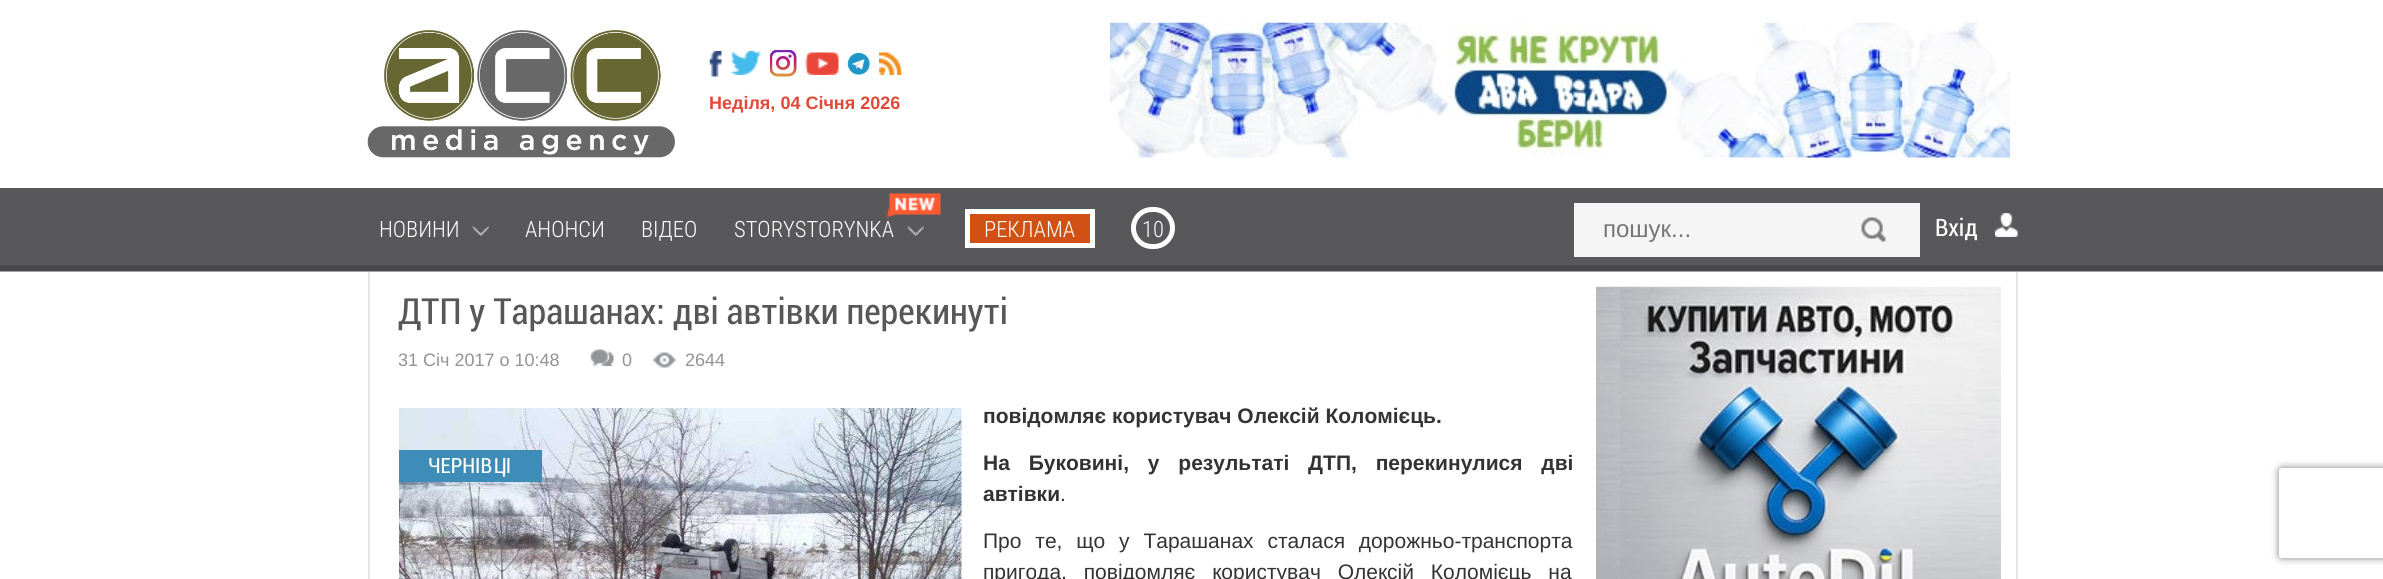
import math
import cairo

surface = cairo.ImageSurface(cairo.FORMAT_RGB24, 2383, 579)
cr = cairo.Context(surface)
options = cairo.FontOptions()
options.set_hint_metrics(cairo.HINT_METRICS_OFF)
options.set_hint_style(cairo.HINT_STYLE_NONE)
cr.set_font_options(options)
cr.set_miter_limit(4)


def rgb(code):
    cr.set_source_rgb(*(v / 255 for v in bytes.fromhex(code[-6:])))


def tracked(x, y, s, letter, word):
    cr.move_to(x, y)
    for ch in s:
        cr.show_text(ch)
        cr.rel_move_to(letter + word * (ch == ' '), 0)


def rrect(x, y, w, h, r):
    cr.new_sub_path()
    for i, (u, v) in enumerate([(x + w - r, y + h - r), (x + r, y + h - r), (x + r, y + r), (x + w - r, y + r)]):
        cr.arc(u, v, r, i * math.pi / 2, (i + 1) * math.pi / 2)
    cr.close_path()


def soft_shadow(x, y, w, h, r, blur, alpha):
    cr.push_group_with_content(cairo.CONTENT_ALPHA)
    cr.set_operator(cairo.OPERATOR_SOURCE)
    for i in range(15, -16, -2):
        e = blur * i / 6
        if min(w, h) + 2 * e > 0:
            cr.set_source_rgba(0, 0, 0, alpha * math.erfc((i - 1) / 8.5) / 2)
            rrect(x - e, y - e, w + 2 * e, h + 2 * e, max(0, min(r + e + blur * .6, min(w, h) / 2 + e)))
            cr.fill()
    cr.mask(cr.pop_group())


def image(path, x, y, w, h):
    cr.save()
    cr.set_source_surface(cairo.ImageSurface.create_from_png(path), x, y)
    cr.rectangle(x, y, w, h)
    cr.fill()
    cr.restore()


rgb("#ffffff")
cr.paint()
image("img/1.png", 367, 30, 308, 128)
image("img/2.png", 709, 51, 13, 26)
image("img/3.png", 730, 51, 31, 24)
image("img/4.png", 770, 50, 27, 27)
image("img/5.png", 805, 52, 34, 23)
image("img/6.png", 847, 52, 23, 23)
image("img/7.png", 879, 52, 23, 23)
image("img/8.png", 1110, 22, 900, 136)
image("img/9.png", 0, 188, 2383, 84)
image("img/10.png", 472, 226, 17, 10)
image("img/11.png", 886, 193, 55, 25)
image("img/10.png", 907, 226, 17, 10)
rgb("#d15115")
cr.rectangle(967.5, 211.5, 125, 34)
cr.fill_preserve()
rgb("#ffffff")
cr.set_line_width(5)
cr.stroke()
rrect(1133.5, 209.5, 39, 37, 18.5)
cr.stroke()
rgb("#f5f5f5")
cr.rectangle(1574, 203, 346, 54)
cr.fill()
image("img/12.png", 1861, 217, 25, 25)
image("img/13.png", 1995, 213, 23, 24)
rgb("#e6e6e6")
cr.rectangle(2016, 272, 2, 307)
cr.fill()
cr.rectangle(368, 272, 2, 307)
cr.fill()
image("img/14.png", 590, 349, 24, 17)
image("img/15.png", 652, 352, 25, 16)
image("img/16.png", 399, 408, 563, 171)
rgb("#3d8db8")
cr.rectangle(399, 450, 143, 32)
cr.fill()
image("img/17.png", 1596, 286, 405, 293)
cr.save()
cr.set_fill_rule(cairo.FILL_RULE_EVEN_ODD)
cr.new_path()
cr.move_to(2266, 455)
cr.line_to(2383, 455)
cr.line_to(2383, 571)
cr.line_to(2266, 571)
cr.close_path()
cr.move_to(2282, 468)
cr.line_to(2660, 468)
cr.curve_to(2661.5, 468, 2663, 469.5, 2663, 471)
cr.line_to(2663, 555)
cr.curve_to(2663, 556.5, 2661.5, 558, 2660, 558)
cr.line_to(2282, 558)
cr.curve_to(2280.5, 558, 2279, 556.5, 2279, 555)
cr.line_to(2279, 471)
cr.curve_to(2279, 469.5, 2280.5, 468, 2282, 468)
cr.close_path()
cr.clip()
rgb("#808080")
soft_shadow(2279, 468, 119, 90, 3, 4, 1)
cr.restore()
cr.select_font_face("Liberation Sans", cairo.FONT_SLANT_NORMAL, cairo.FONT_WEIGHT_BOLD)
cr.set_font_size(18)
rgb("#e04938")
cr.move_to(709, 109)
cr.show_text("Неділя, 04 Січня 2026")
cr.select_font_face("Roboto Condensed Light")
cr.set_font_size(22.5)
rgb("#ffffff")
for x, y, s in [
    (379, 237, "НОВИНИ"),
    (525, 237, "АНОНСИ"),
    (641, 237, "ВІДЕО"),
    (734, 237, "STORYSTORYNKA"),
    (984, 237, "РЕКЛАМА"),
    (1142, 237, "10"),
]:
    cr.move_to(x, y)
    cr.show_text(s)
cr.select_font_face("Liberation Sans")
cr.set_font_size(24)
rgb("#757575")
cr.move_to(1603, 237)
cr.show_text("пошук...")
cr.select_font_face("Roboto")
rgb("#ffffff")
cr.move_to(1935, 236)
cr.show_text("Вхід")
cr.set_font_size(36)
rgb("#575759")
cr.move_to(398, 324)
cr.show_text("ДТП у Тарашанах: дві автівки перекинуті")
cr.select_font_face("Liberation Sans")
cr.set_font_size(18)
rgb("#929396")
for x, y, s in [
    (398, 366, "31 Січ 2017 о 10:48"),
    (622, 366, "0"),
    (685, 366, "2644"),
]:
    cr.move_to(x, y)
    cr.show_text(s)
cr.select_font_face("Roboto")
cr.set_font_size(21)
rgb("#ffffff")
cr.move_to(428, 473)
cr.show_text("ЧЕРНІВЦІ")
cr.select_font_face("Liberation Sans", cairo.FONT_SLANT_NORMAL, cairo.FONT_WEIGHT_BOLD)
rgb("#333333")
cr.move_to(983, 423)
cr.show_text("повідомляє користувач Олексій Коломієць.")
tracked(983, 470, "На Буковині, у результаті ДТП, перекинулися дві", 0, 13)
cr.move_to(983, 501)
cr.show_text("автівки")
cr.select_font_face("Liberation Sans")
cr.move_to(1060, 501)
cr.show_text(".")
tracked(983, 548, "Про те, що у Тарашанах сталася дорожньо-транспорта", 0, 8)
tracked(983, 579, "пригода, повідомляє користувач Олексій Коломієць на", 0, 11)
surface.write_to_png("page.png")
